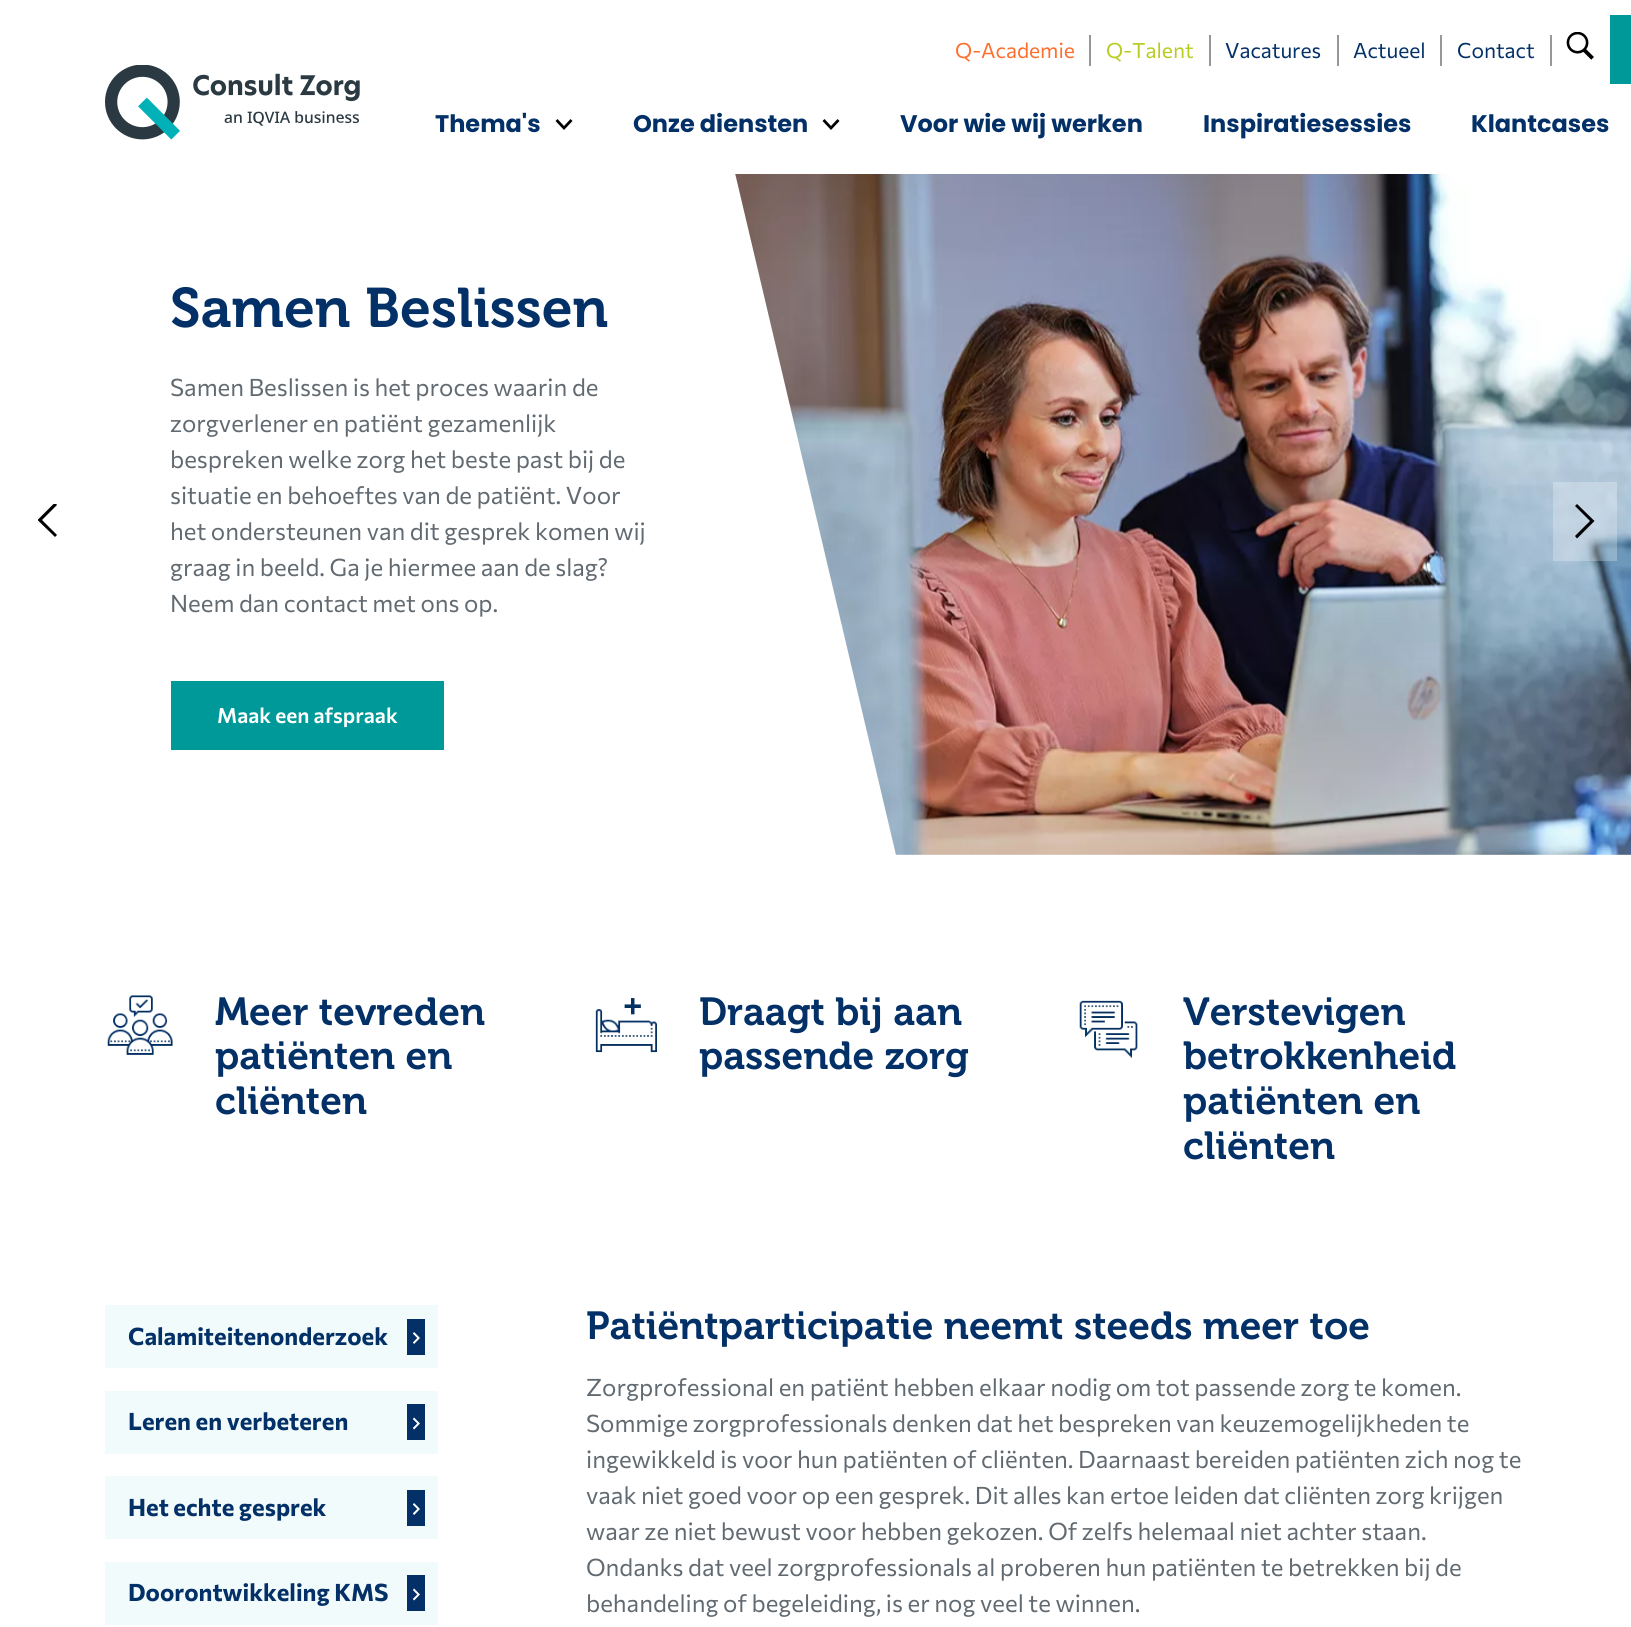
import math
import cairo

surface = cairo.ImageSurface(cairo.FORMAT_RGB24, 1631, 1627)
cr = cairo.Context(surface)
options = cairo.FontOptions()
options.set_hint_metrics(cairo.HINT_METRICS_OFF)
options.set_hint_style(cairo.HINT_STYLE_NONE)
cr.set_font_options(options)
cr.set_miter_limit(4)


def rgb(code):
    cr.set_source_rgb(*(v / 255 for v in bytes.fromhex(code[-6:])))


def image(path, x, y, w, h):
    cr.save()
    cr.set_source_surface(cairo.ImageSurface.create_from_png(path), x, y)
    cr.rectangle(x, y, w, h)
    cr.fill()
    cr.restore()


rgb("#ffffff")
cr.paint()
image("img/1.png", 105, 65, 255, 75)
for x, y, w, h, color in [
    (1089, 35, 2, 31, "#979797"),
    (1209, 35, 2, 31, "#979797"),
    (1337, 35, 2, 31, "#979797"),
    (1440, 35, 2, 31, "#979797"),
    (1550, 35, 2, 31, "#979797"),
]:
    rgb(color)
    cr.rectangle(x, y, w, h)
    cr.fill()
image("img/2.png", 1566, 32, 28, 28)
rgb("#009999")
cr.rectangle(1610, 15, 21, 69)
cr.fill()
rgb("#000000")
cr.new_path()
cr.move_to(572.5, 121)
cr.line_to(570.5, 119)
cr.line_to(564, 126)
cr.line_to(557.5, 119)
cr.line_to(555.5, 121)
cr.line_to(564, 130)
cr.close_path()
cr.fill()
cr.new_path()
cr.move_to(839.5, 121)
cr.line_to(837.5, 119)
cr.line_to(831, 126)
cr.line_to(824.5, 119)
cr.line_to(822.5, 121)
cr.line_to(831, 130)
cr.close_path()
cr.fill()
image("img/3.png", 735, 174, 896, 681)
rgb("#ffffff")
cr.new_path()
cr.move_to(0, 173)
cr.line_to(0, 855)
cr.line_to(896, 855)
cr.line_to(735, 173)
cr.close_path()
cr.fill()
cr.save()
cr.rectangle(38, 504, 19, 35)
cr.clip()
rgb("#000000")
cr.new_path()
cr.move_to(55, 537)
cr.line_to(57, 535)
cr.line_to(42, 520)
cr.line_to(57, 505)
cr.line_to(55, 502.5)
cr.line_to(37.5, 520)
cr.close_path()
cr.fill()
cr.restore()
rgb("#009999")
cr.rectangle(171, 681, 273, 69)
cr.fill()
cr.set_source_rgba(1, 1, 1, 0.25)
cr.rectangle(1553, 482, 64, 79)
cr.fill()
rgb("#000000")
cr.new_path()
cr.move_to(1577, 504)
cr.line_to(1575, 506)
cr.line_to(1590, 521)
cr.line_to(1575, 536)
cr.line_to(1577, 538.5)
cr.line_to(1594.5, 521)
cr.close_path()
cr.fill()
image("img/4.png", 107, 995, 66, 60)
image("img/5.png", 595, 998, 62, 55)
image("img/6.png", 1079, 1000, 59, 59)
rgb("#f2fbfb")
cr.rectangle(105, 1305, 333, 63)
cr.fill()
rgb("#023067")
cr.rectangle(407, 1319, 18, 36)
cr.fill()
image("img/7.png", 413, 1332, 7, 12)
rgb("#f2fbfb")
cr.rectangle(105, 1391, 333, 63)
cr.fill()
rgb("#023067")
cr.rectangle(407, 1404, 18, 36)
cr.fill()
image("img/8.png", 413, 1417, 7, 13)
rgb("#f2fbfb")
cr.rectangle(105, 1476, 333, 63)
cr.fill()
rgb("#023067")
cr.rectangle(407, 1490, 18, 36)
cr.fill()
image("img/7.png", 413, 1503, 7, 12)
rgb("#f2fbfb")
cr.rectangle(105, 1562, 333, 63)
cr.fill()
rgb("#023067")
cr.rectangle(407, 1575, 18, 36)
cr.fill()
image("img/8.png", 413, 1588, 7, 13)
cr.select_font_face("Commissioner")
cr.set_font_size(21)
rgb("#fe6e2d")
cr.move_to(955, 58)
cr.show_text("Q-Academie")
rgb("#b8cb20")
cr.move_to(1106, 58)
cr.show_text("Q-Talent")
rgb("#023067")
for x, y, s in [
    (1225, 58, "Vacatures"),
    (1353, 58, "Actueel"),
    (1457, 58, "Contact"),
]:
    cr.move_to(x, y)
    cr.show_text(s)
cr.select_font_face("Poppins", cairo.FONT_SLANT_NORMAL, cairo.FONT_WEIGHT_BOLD)
cr.set_font_size(24)
for x, y, s in [
    (435, 132, "Thema's"),
    (633, 132, "Onze diensten"),
    (900, 132, "Voor wie wij werken"),
    (1203, 132, "Inspiratiesessies"),
    (1471, 132, "Klantcases"),
]:
    cr.move_to(x, y)
    cr.show_text(s)
cr.select_font_face("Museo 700 SemiBold")
cr.set_font_size(55.5)
cr.move_to(170, 327)
cr.show_text("Samen Beslissen")
cr.select_font_face("Commissioner")
cr.set_font_size(24)
rgb("#626a71")
for x, y, s in [
    (170, 396, "Samen Beslissen is het proces waarin de"),
    (170, 432, "zorgverlener en patiënt gezamenlijk"),
    (170, 468, "bespreken welke zorg het beste past bij de"),
    (170, 504, "situatie en behoeftes van de patiënt. Voor"),
    (170, 540, "het ondersteunen van dit gesprek komen wij"),
    (170, 576, "graag in beeld. Ga je hiermee aan de slag?"),
    (170, 612, "Neem dan contact met ons op."),
]:
    cr.move_to(x, y)
    cr.show_text(s)
cr.select_font_face("Commissioner SemiBold")
cr.set_font_size(21)
rgb("#ffffff")
cr.move_to(217, 723)
cr.show_text("Maak een afspraak")
cr.select_font_face("Museo 700 SemiBold")
cr.set_font_size(39)
rgb("#023067")
for x, y, s in [
    (215, 1025, "Meer tevreden"),
    (215, 1069, "patiënten en"),
    (215, 1114, "cliënten"),
    (699, 1025, "Draagt bij aan"),
    (699, 1069, "passende zorg"),
    (1183, 1025, "Verstevigen"),
    (1183, 1069, "betrokkenheid"),
    (1183, 1114, "patiënten en"),
    (1183, 1159, "cliënten"),
]:
    cr.move_to(x, y)
    cr.show_text(s)
cr.select_font_face("Commissioner", cairo.FONT_SLANT_NORMAL, cairo.FONT_WEIGHT_BOLD)
cr.set_font_size(24)
for x, y, s in [
    (128, 1345, "Calamiteitenonderzoek"),
    (128, 1430, "Leren en verbeteren"),
    (128, 1516, "Het echte gesprek"),
    (128, 1601, "Doorontwikkeling KMS"),
]:
    cr.move_to(x, y)
    cr.show_text(s)
cr.select_font_face("Museo 700 SemiBold")
cr.set_font_size(39)
cr.move_to(586, 1339)
cr.show_text("Patiëntparticipatie neemt steeds meer toe")
cr.select_font_face("Commissioner")
cr.set_font_size(24)
rgb("#626a71")
for x, y, s in [
    (586, 1396, "Zorgprofessional en patiënt hebben elkaar nodig om tot passende zorg te komen."),
    (586, 1432, "Sommige zorgprofessionals denken dat het bespreken van keuzemogelijkheden te"),
    (586, 1468, "ingewikkeld is voor hun patiënten of cliënten. Daarnaast bereiden patiënten zich nog te"),
    (586, 1504, "vaak niet goed voor op een gesprek. Dit alles kan ertoe leiden dat cliënten zorg krijgen"),
    (586, 1540, "waar ze niet bewust voor hebben gekozen. Of zelfs helemaal niet achter staan."),
    (586, 1576, "Ondanks dat veel zorgprofessionals al proberen hun patiënten te betrekken bij de"),
    (586, 1612, "behandeling of begeleiding, is er nog veel te winnen."),
]:
    cr.move_to(x, y)
    cr.show_text(s)
surface.write_to_png("page.png")
